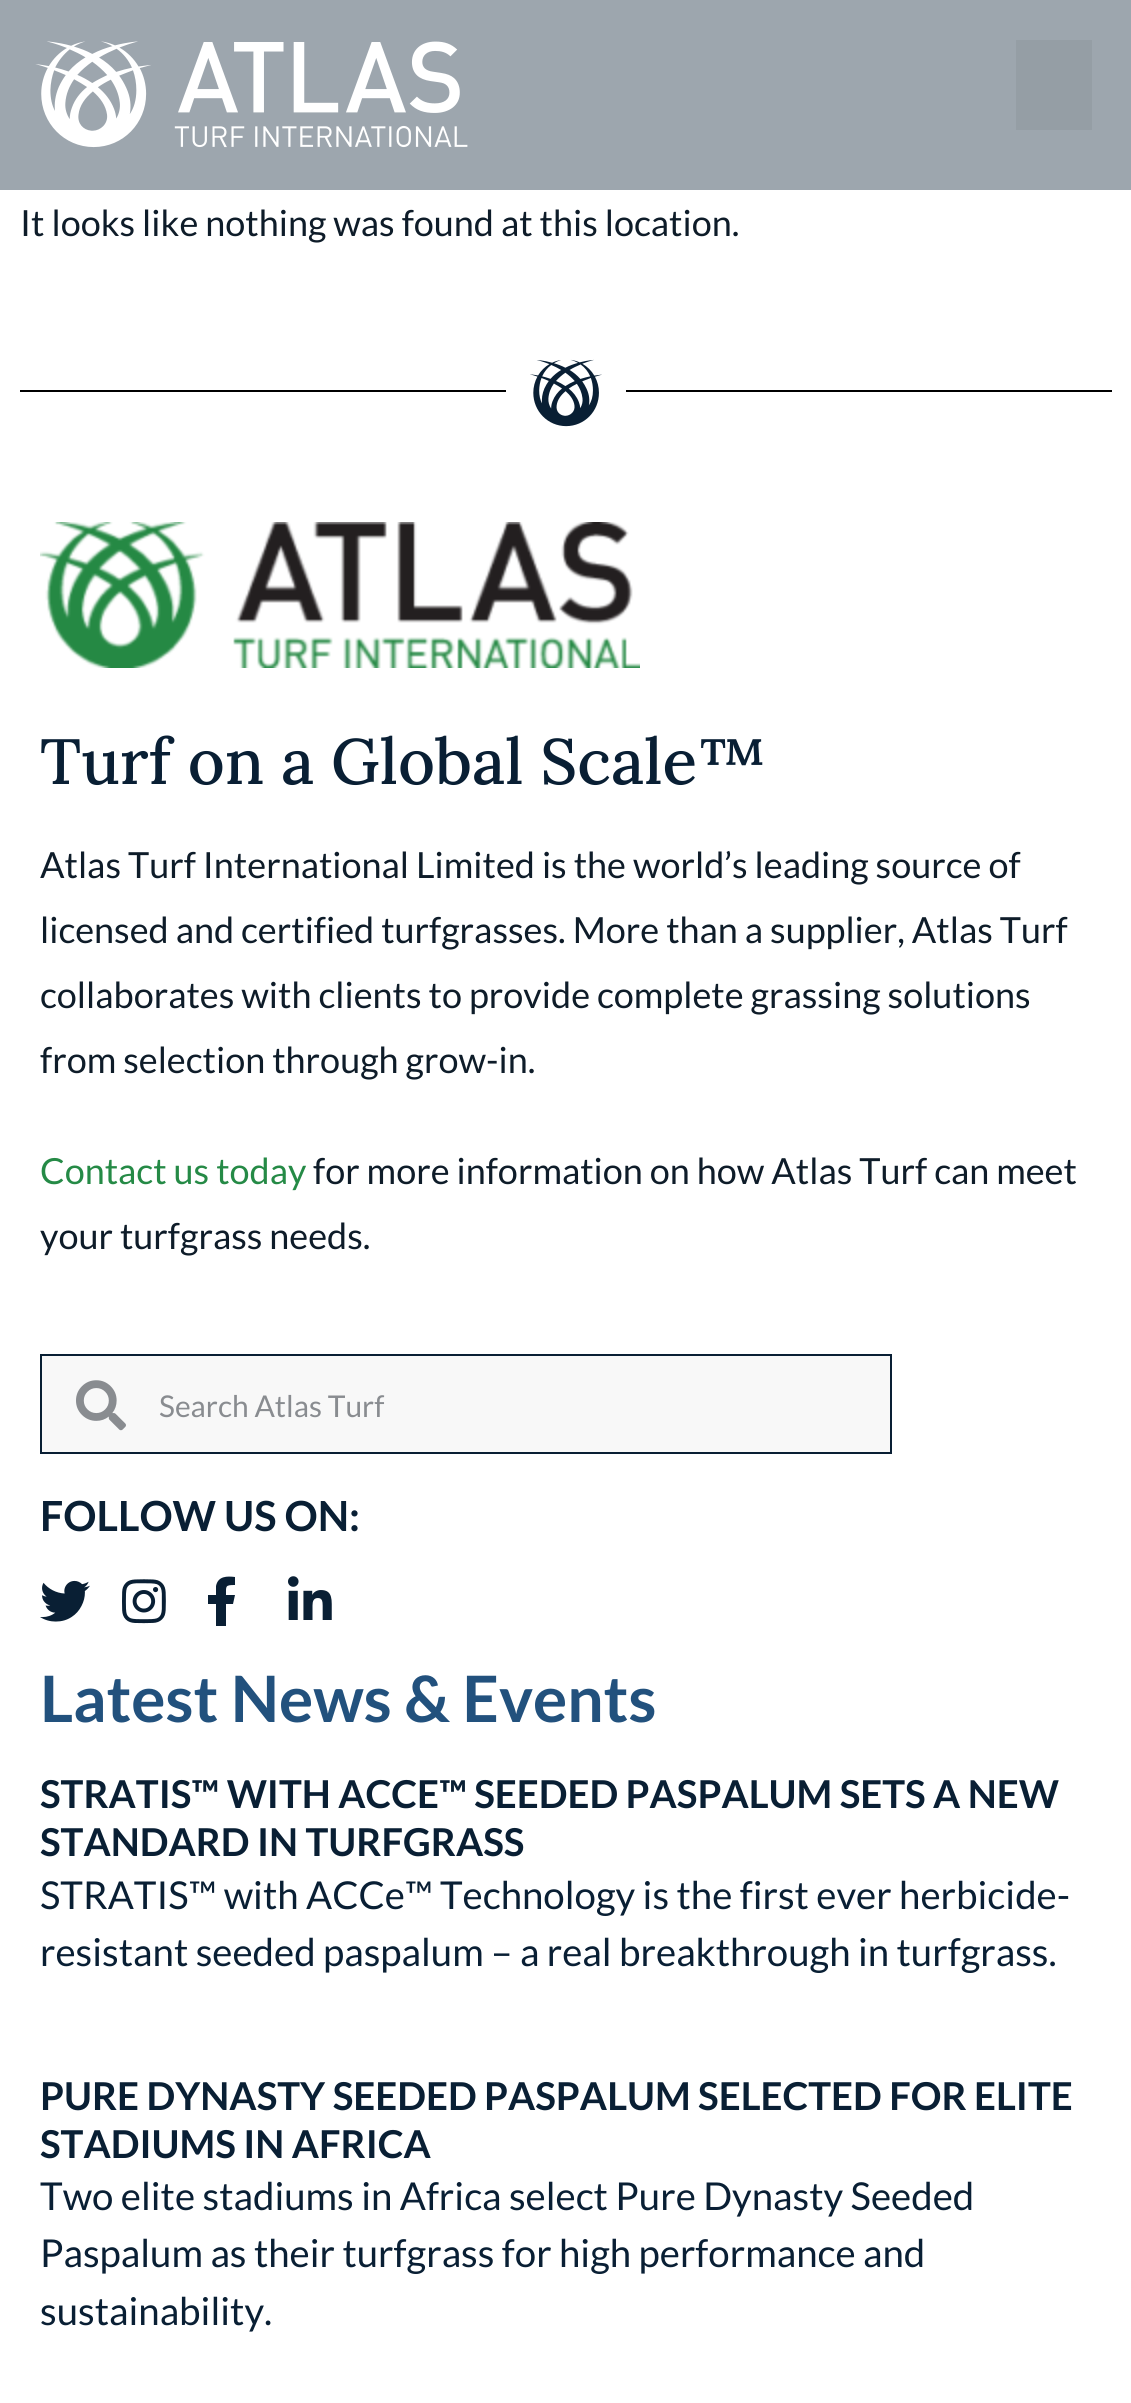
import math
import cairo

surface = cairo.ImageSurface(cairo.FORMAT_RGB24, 1131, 2403)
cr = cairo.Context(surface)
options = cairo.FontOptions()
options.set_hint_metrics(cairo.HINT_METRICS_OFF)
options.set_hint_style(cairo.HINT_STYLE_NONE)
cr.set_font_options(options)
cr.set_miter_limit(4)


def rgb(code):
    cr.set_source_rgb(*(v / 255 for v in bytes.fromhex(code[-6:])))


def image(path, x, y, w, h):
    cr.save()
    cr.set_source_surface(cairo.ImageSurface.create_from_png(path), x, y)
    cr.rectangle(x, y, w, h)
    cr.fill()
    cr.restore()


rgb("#ffffff")
cr.paint()
rgb("#9da6ae")
cr.rectangle(0, 0, 1131, 190)
cr.fill()
image("img/1.png", 35, 41, 433, 107)
rgb("#959ea5")
cr.rectangle(1016, 40, 76, 90)
cr.fill()
rgb("#000000")
cr.rectangle(20, 390, 486, 2)
cr.fill()
image("img/2.png", 530, 359, 72, 68)
cr.rectangle(626, 390, 486, 2)
cr.fill()
image("img/3.png", 40, 522, 600, 146)
rgb("#f8f8f8")
cr.rectangle(41, 1355, 850, 98)
cr.fill_preserve()
rgb("#091f34")
cr.stroke()
image("img/4.png", 76, 1380, 50, 51)
image("img/5.png", 40, 1580, 50, 42)
image("img/6.png", 122, 1579, 44, 45)
cr.new_path()
cr.move_to(233, 1604)
cr.line_to(226, 1604)
cr.line_to(226, 1626)
cr.line_to(216, 1626)
cr.line_to(216, 1604)
cr.line_to(208, 1604)
cr.line_to(208, 1595)
cr.line_to(216, 1595)
cr.line_to(216, 1586)
cr.curve_to(218, 1576, 227, 1576, 235, 1577)
cr.line_to(235, 1585)
cr.curve_to(225, 1585, 226, 1586, 226, 1595)
cr.line_to(235, 1595)
cr.close_path()
cr.fill()
image("img/7.png", 288, 1576, 44, 44)
cr.select_font_face("Lato")
cr.set_font_size(36)
rgb("#0e1c29")
cr.move_to(20, 236)
cr.show_text("It looks like nothing was found at this location.")
cr.select_font_face("Lora Medium")
cr.set_font_size(64)
rgb("#091f34")
cr.move_to(40, 784)
cr.show_text("Turf on a Global Scale™")
cr.select_font_face("Lato")
cr.set_font_size(36)
rgb("#0e1c29")
for x, y, s in [
    (40, 878, "Atlas Turf International Limited is the world’s leading source of"),
    (40, 943, "licensed and certified turfgrasses. More than a supplier, Atlas Turf"),
    (40, 1008, "collaborates with clients to provide complete grassing solutions"),
    (40, 1073, "from selection through grow-in."),
]:
    cr.move_to(x, y)
    cr.show_text(s)
rgb("#258a46")
cr.move_to(40, 1184)
cr.show_text("Contact us today")
rgb("#0e1c29")
cr.move_to(313, 1184)
cr.show_text("for more information on how Atlas Turf can meet")
cr.move_to(40, 1249)
cr.show_text("your turfgrass needs.")
cr.set_font_size(30)
rgb("#898c90")
cr.move_to(159, 1417)
cr.show_text("Search Atlas Turf")
cr.select_font_face("Lato", cairo.FONT_SLANT_NORMAL, cairo.FONT_WEIGHT_BOLD)
cr.set_font_size(41.5)
rgb("#091f34")
cr.move_to(40, 1531)
cr.show_text("FOLLOW US ON:")
cr.set_font_size(64)
rgb("#22517d")
cr.move_to(40, 1722)
cr.show_text("Latest News & Events")
cr.set_font_size(38.4)
rgb("#091f34")
cr.move_to(40, 1808)
cr.show_text("STRATIS™ WITH ACCE™ SEEDED PASPALUM SETS A NEW")
cr.move_to(40, 1856)
cr.show_text("STANDARD IN TURFGRASS")
cr.select_font_face("Lato")
cr.move_to(40, 1909)
cr.show_text("STRATIS™ with ACCe™ Technology is the first ever herbicide-")
cr.move_to(40, 1966)
cr.show_text("resistant seeded paspalum – a real breakthrough in turfgrass.")
cr.select_font_face("Lato", cairo.FONT_SLANT_NORMAL, cairo.FONT_WEIGHT_BOLD)
cr.move_to(40, 2110)
cr.show_text("PURE DYNASTY SEEDED PASPALUM SELECTED FOR ELITE")
cr.move_to(40, 2158)
cr.show_text("STADIUMS IN AFRICA")
cr.select_font_face("Lato")
for x, y, s in [
    (40, 2210, "Two elite stadiums in Africa select Pure Dynasty Seeded"),
    (40, 2267, "Paspalum as their turfgrass for high performance and"),
    (40, 2325, "sustainability."),
]:
    cr.move_to(x, y)
    cr.show_text(s)
surface.write_to_png("page.png")
